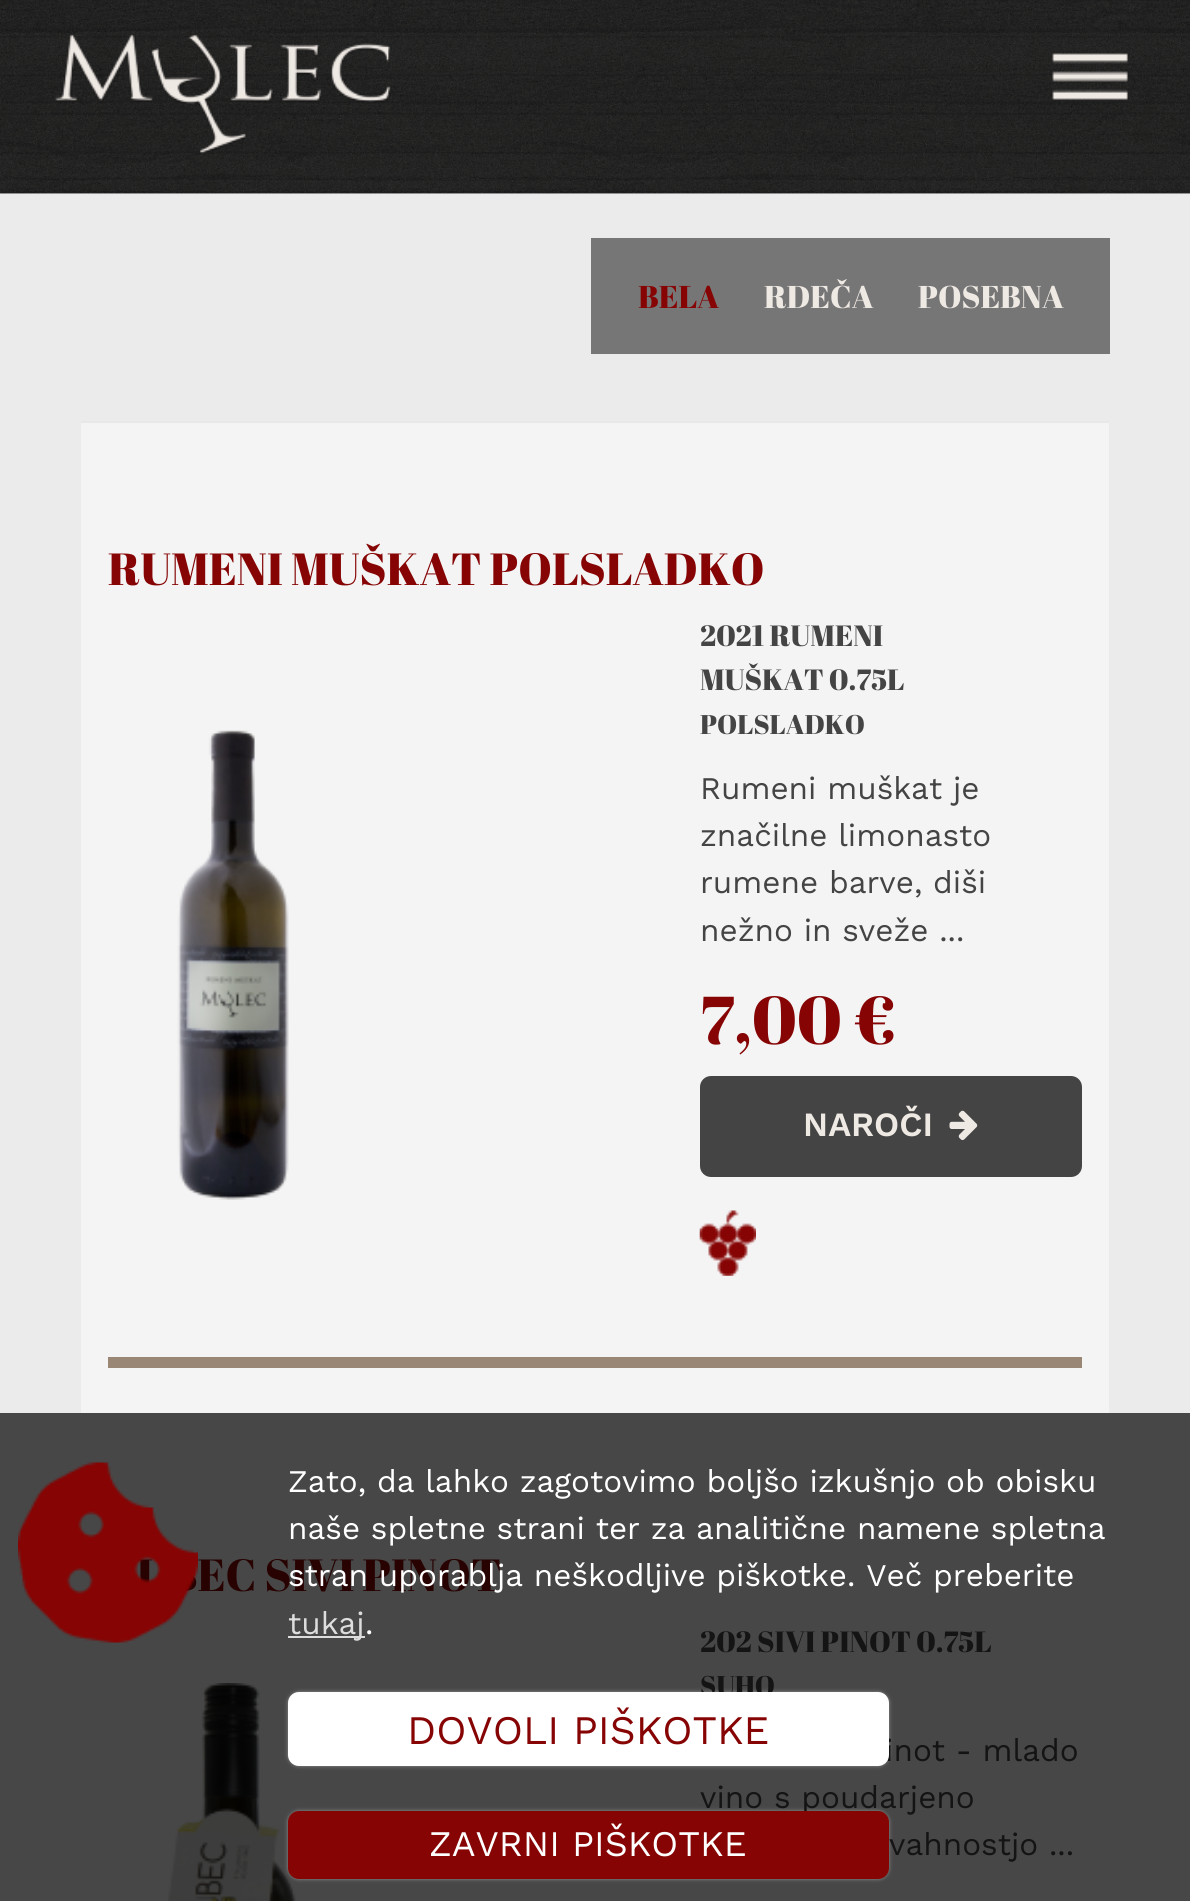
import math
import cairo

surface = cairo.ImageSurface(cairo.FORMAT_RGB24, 1190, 1901)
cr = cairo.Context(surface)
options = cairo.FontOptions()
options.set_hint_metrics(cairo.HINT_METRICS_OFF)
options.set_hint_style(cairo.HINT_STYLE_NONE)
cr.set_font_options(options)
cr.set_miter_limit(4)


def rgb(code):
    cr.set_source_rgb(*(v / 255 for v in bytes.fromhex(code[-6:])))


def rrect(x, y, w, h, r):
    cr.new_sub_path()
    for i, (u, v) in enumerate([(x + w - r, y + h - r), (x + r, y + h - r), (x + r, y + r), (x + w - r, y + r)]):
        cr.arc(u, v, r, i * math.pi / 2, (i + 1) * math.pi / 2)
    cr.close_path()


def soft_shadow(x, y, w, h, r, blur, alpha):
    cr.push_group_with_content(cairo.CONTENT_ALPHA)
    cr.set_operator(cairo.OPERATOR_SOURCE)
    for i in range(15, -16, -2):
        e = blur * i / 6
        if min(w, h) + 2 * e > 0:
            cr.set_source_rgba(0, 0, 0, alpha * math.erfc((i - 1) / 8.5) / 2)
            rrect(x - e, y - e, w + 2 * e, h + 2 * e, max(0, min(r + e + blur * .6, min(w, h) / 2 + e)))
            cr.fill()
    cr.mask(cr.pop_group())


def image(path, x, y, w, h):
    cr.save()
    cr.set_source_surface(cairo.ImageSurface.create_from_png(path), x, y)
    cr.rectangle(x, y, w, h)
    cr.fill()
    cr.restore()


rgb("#ffffff")
cr.paint()
image("img/1.png", 0, 0, 1190, 194)
image("img/2.png", 55, 34, 336, 120)
image("img/3.png", 1052, 53, 76, 47)
for x, y, w, h, color in [
    (0, 194, 1190, 1219, "#ebebeb"),
    (0, 1413, 1190, 488, "#474747"),
    (591, 238, 519, 116, "#767676"),
    (81, 423, 1028, 990, "#f4f4f4"),
    (81, 421, 1028, 2, "#e8e8e8"),
    (108, 1357, 974, 11, "#998675"),
]:
    rgb(color)
    cr.rectangle(x, y, w, h)
    cr.fill()
image("img/4.png", 177, 730, 112, 470)
rgb("#444444")
rrect(700, 1076, 382, 101, 11)
cr.fill()
image("img/5.png", 949, 1110, 29, 31)
image("img/6.png", 699, 1210, 57, 66)
image("img/7.png", 167, 1683, 129, 218)
rgb("#dddddd")
cr.rectangle(288, 1636, 77, 2)
cr.fill()
rgb("#919191")
soft_shadow(288, 1692, 601, 74, 11, 2, 1)
soft_shadow(288, 1811, 601, 68, 11, 2, 1)
cr.select_font_face("Abril Fatface")
cr.set_font_size(31.5)
rgb("#860404")
cr.move_to(638, 308)
cr.show_text("BELA")
rgb("#efe9e4")
cr.move_to(764, 308)
cr.show_text("RDEČA")
cr.move_to(918, 308)
cr.show_text("POSEBNA")
cr.set_font_size(45)
rgb("#860404")
cr.move_to(108, 585)
cr.show_text("RUMENI MUŠKAT POLSLADKO")
cr.set_font_size(29.25)
rgb("#444444")
cr.move_to(700, 646)
cr.show_text("2021 RUMENI")
cr.move_to(700, 690)
cr.show_text("MUŠKAT 0.75L")
cr.set_font_size(27)
cr.move_to(700, 734)
cr.show_text("POLSLADKO")
cr.select_font_face("Work Sans")
cr.set_font_size(31.5)
for x, y, s in [
    (700, 799, "Rumeni muškat je"),
    (700, 846, "značilne limonasto"),
    (700, 893, "rumene barve, diši"),
    (700, 941, "nežno in sveže ..."),
]:
    cr.move_to(x, y)
    cr.show_text(s)
cr.select_font_face("Abril Fatface")
cr.set_font_size(67.5)
rgb("#860404")
cr.move_to(700, 1044)
cr.show_text("7,00 €")
cr.select_font_face("Work Sans SemiBold")
cr.set_font_size(34)
rgb("#efe9e4")
cr.move_to(803, 1136)
cr.show_text("NAROČI")
cr.select_font_face("Abril Fatface")
cr.set_font_size(45)
rgb("#280101")
cr.move_to(137, 1591)
cr.show_text("UBEC SIVI PINOT")
cr.set_font_size(29.25)
rgb("#141414")
cr.move_to(700, 1652)
cr.show_text("202 SIVI PINOT 0.75L")
cr.set_font_size(27)
cr.move_to(700, 1695)
cr.show_text("SUHO")
cr.select_font_face("Work Sans")
cr.set_font_size(31.5)
for x, y, s in [
    (885, 1761, "inot - mlado"),
    (700, 1808, "vino s poudarjeno"),
    (889, 1855, "vahnostjo ..."),
]:
    cr.move_to(x, y)
    cr.show_text(s)
image("img/8.png", 18, 1462, 180, 181)
rgb("#ffffff")
for x, y, s in [
    (288, 1492, "Zato, da lahko zagotovimo boljšo izkušnjo ob obisku"),
    (288, 1539, "naše spletne strani ter za analitične namene spletna"),
    (288, 1586, "stran uporablja neškodljive piškotke. Več preberite"),
]:
    cr.move_to(x, y)
    cr.show_text(s)
rgb("#dddddd")
cr.move_to(288, 1634)
cr.show_text("tukaj")
rgb("#ffffff")
cr.move_to(365, 1634)
cr.show_text(".")
rrect(288, 1692, 601, 74, 11)
cr.fill()
cr.set_font_size(40.5)
rgb("#860404")
cr.move_to(407, 1744)
cr.show_text("DOVOLI PIŠKOTKE")
rrect(288, 1811, 601, 68, 11)
cr.fill()
cr.set_font_size(36)
rgb("#ffffff")
cr.move_to(429, 1856)
cr.show_text("ZAVRNI PIŠKOTKE")
surface.write_to_png("page.png")
